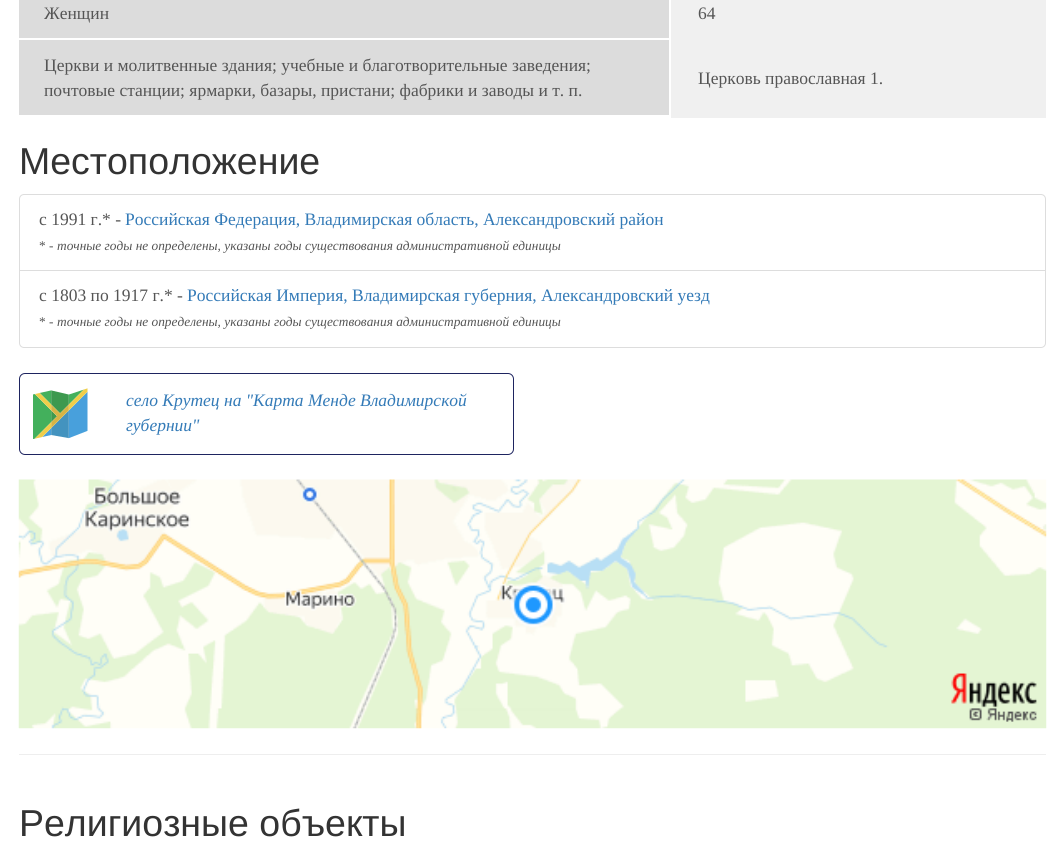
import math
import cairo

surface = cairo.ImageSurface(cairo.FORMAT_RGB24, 1064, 845)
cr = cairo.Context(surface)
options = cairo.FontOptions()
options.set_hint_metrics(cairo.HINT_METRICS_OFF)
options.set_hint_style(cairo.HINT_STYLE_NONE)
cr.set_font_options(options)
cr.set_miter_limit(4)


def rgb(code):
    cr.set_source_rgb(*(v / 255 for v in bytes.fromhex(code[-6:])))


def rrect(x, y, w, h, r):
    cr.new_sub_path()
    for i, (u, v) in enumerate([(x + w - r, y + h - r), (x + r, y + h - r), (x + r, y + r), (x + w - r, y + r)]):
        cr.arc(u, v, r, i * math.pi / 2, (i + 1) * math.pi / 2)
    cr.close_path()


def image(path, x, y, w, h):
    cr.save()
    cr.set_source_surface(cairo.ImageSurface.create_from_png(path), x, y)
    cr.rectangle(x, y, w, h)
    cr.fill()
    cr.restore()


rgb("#ffffff")
cr.paint()
for x, y, w, h, color in [
    (19, 0, 650, 38, "#dcdcdc"),
    (671, 0, 375, 118, "#f0f0f0"),
    (19, 40, 650, 75, "#dcdcdc"),
]:
    rgb(color)
    cr.rectangle(x, y, w, h)
    cr.fill()
cr.new_path()
cr.move_to(24, 194.5)
cr.line_to(1041, 194.5)
cr.curve_to(1043.5, 194.5, 1045.5, 196.5, 1045.5, 199)
cr.line_to(1045.5, 270.5)
cr.line_to(19.5, 270.5)
cr.line_to(19.5, 199)
cr.curve_to(19.5, 196.5, 21.5, 194.5, 24, 194.5)
cr.close_path()
rgb("#dddddd")
cr.set_line_width(1)
cr.stroke()
rgb("#ffffff")
cr.new_path()
cr.move_to(19.5, 270.5)
cr.line_to(1045.5, 270.5)
cr.line_to(1045.5, 343)
cr.curve_to(1045.5, 345.5, 1043.5, 347.5, 1041, 347.5)
cr.line_to(24, 347.5)
cr.curve_to(21.5, 347.5, 19.5, 345.5, 19.5, 343)
cr.close_path()
cr.fill_preserve()
rgb("#dddddd")
cr.stroke()
rrect(19.5, 373.5, 494, 81, 5.5)
rgb("#1e2460")
cr.stroke()
image("img/1.png", 33, 388, 55, 51)
image("img/2.png", 18, 479, 1029, 250)
rgb("#eeeeee")
cr.rectangle(19, 754, 1027, 1)
cr.fill()
cr.select_font_face("Liberation Serif")
cr.set_font_size(17.5)
rgb("#555555")
for x, y, s in [
    (44, 19, "Женщин"),
    (698, 19, "64"),
    (44, 71, "Церкви и молитвенные здания; учебные и благотворительные заведения;"),
    (44, 96, "почтовые станции; ярмарки, базары, пристани; фабрики и заводы и т. п."),
    (698, 84, "Церковь православная 1."),
]:
    cr.move_to(x, y)
    cr.show_text(s)
cr.select_font_face("Liberation Sans")
cr.set_font_size(37.5)
rgb("#333333")
cr.move_to(19, 174)
cr.show_text("Местоположение")
cr.select_font_face("Liberation Serif")
cr.set_font_size(17.5)
rgb("#555555")
cr.move_to(39, 225)
cr.show_text("с 1991 г.* -")
rgb("#337ab7")
cr.move_to(125, 225)
cr.show_text("Российская Федерация, Владимирская область, Александровский район")
cr.set_font_size(13.35)
rgb("#555555")
cr.move_to(39, 250)
cr.show_text("* -")
cr.select_font_face("Liberation Serif", cairo.FONT_SLANT_ITALIC)
cr.move_to(57, 250)
cr.show_text("точные годы не определены, указаны годы существования административной единицы")
cr.select_font_face("Liberation Serif")
cr.set_font_size(17.5)
cr.move_to(39, 301)
cr.show_text("с 1803 по 1917 г.* -")
rgb("#337ab7")
cr.move_to(187, 301)
cr.show_text("Российская Империя, Владимирская губерния, Александровский уезд")
cr.set_font_size(13.35)
rgb("#555555")
cr.move_to(39, 326)
cr.show_text("* -")
cr.select_font_face("Liberation Serif", cairo.FONT_SLANT_ITALIC)
cr.move_to(57, 326)
cr.show_text("точные годы не определены, указаны годы существования административной единицы")
cr.set_font_size(17.5)
rgb("#337ab7")
cr.move_to(126, 406)
cr.show_text("село Крутец на \"Карта Менде Владимирской")
cr.move_to(126, 431)
cr.show_text("губернии\"")
cr.select_font_face("Liberation Sans")
cr.set_font_size(37.5)
rgb("#333333")
cr.move_to(19, 836)
cr.show_text("Религиозные объекты")
surface.write_to_png("page.png")
